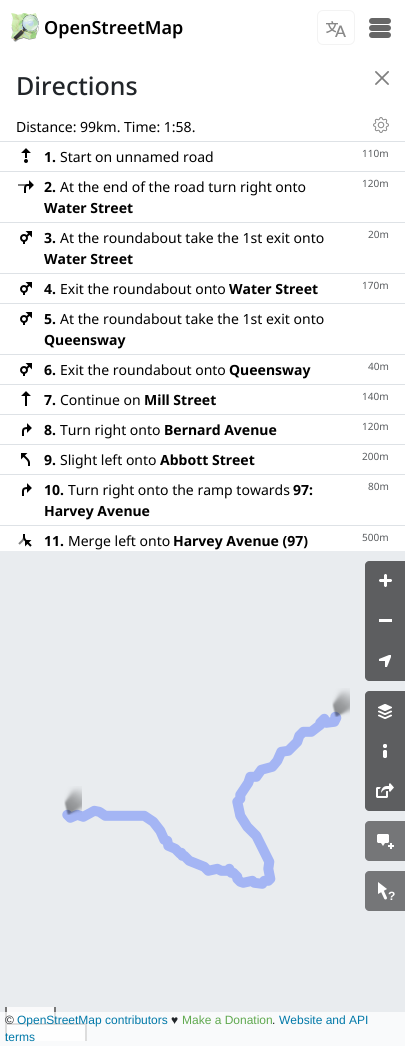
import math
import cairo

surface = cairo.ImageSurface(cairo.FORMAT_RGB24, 405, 1046)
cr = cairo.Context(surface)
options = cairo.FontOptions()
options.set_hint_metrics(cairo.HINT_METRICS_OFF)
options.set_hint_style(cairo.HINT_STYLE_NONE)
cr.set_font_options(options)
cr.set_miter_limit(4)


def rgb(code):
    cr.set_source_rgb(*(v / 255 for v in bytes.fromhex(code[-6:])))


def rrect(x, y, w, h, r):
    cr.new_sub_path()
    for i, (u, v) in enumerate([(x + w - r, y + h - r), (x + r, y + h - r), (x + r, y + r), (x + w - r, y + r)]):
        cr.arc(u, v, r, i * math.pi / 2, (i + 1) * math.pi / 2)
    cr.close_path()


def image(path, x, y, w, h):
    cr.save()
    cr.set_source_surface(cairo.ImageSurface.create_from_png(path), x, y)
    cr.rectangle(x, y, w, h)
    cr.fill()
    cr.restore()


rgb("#ffffff")
cr.paint()
image("img/1.png", 11, 13, 28, 29)
rrect(317.5, 10.5, 37, 34, 5.5)
rgb("#f3f3f3")
cr.set_line_width(1)
cr.stroke()
image("img/2.png", 326, 21, 20, 16)
image("img/3.png", 369, 18, 22, 20)
image("img/4.png", 375, 71, 14, 14)
rgb("#dee2e6")
cr.rectangle(0, 141, 405, 1)
cr.fill()
image("img/5.png", 373, 117, 16, 16)
image("img/6.png", 21, 148, 10, 15)
cr.rectangle(0, 171, 405, 1)
cr.fill()
image("img/7.png", 18, 180, 16, 13)
cr.rectangle(0, 222, 405, 1)
cr.fill()
image("img/8.png", 20, 231, 12, 13)
cr.rectangle(0, 273, 405, 1)
cr.fill()
image("img/8.png", 20, 282, 12, 13)
cr.rectangle(0, 303, 405, 1)
cr.fill()
image("img/8.png", 20, 312, 12, 13)
cr.rectangle(0, 354, 405, 1)
cr.fill()
image("img/8.png", 20, 363, 12, 13)
cr.rectangle(0, 384, 405, 1)
cr.fill()
cr.rectangle(0, 414, 405, 1)
cr.fill()
cr.new_path()
cr.move_to(26, 406)
cr.line_to(26, 393)
cr.move_to(28.5, 395)
cr.line_to(26, 392.5)
cr.line_to(23.5, 395)
cr.close_path()
cr.move_to(23, 436)
cr.curve_to(23, 428.5, 22, 428, 30, 428)
cr.move_to(28, 430.5)
cr.line_to(30.5, 428)
cr.line_to(28, 425.5)
cr.close_path()
rgb("#000000")
cr.set_line_width(2)
cr.stroke()
rgb("#dee2e6")
cr.rectangle(0, 444, 405, 1)
cr.fill()
image("img/9.png", 21, 453, 9, 13)
cr.rectangle(0, 474, 405, 1)
cr.fill()
cr.new_path()
cr.move_to(23, 496)
cr.curve_to(23, 488.5, 22, 488, 30, 488)
cr.move_to(28, 490.5)
cr.line_to(30.5, 488)
cr.line_to(28, 485.5)
cr.close_path()
rgb("#000000")
cr.stroke()
rgb("#dee2e6")
cr.rectangle(0, 525, 405, 1)
cr.fill()
image("img/10.png", 18, 534, 14, 13)
rgb("#e9ecef")
cr.rectangle(0, 551, 405, 495)
cr.fill()
rgb("#fafafb")
cr.rectangle(7, 1025, 78, 16)
cr.fill()
image("img/13.png", 62, 711, 280, 178)
image("img/11.png", 332, 688, 18, 29)
image("img/12.png", 64, 786, 18, 29)
rgb("#5d5e60")
cr.new_path()
cr.move_to(369, 561)
cr.line_to(405, 561)
cr.line_to(405, 601)
cr.line_to(365, 601)
cr.line_to(365, 565)
cr.curve_to(365, 563, 367, 561, 369, 561)
cr.close_path()
cr.fill()
image("img/14.png", 379, 574, 13, 13)
cr.rectangle(365, 601, 40, 40)
cr.fill()
rgb("#ffffff")
cr.rectangle(379, 619, 13, 3)
cr.fill()
rgb("#5d5e60")
cr.new_path()
cr.move_to(365, 641)
cr.line_to(405, 641)
cr.line_to(405, 681)
cr.line_to(369, 681)
cr.curve_to(367, 681, 365, 679, 365, 677)
cr.close_path()
cr.fill()
image("img/15.png", 379, 655, 12, 12)
cr.new_path()
cr.move_to(369, 691)
cr.line_to(405, 691)
cr.line_to(405, 731)
cr.line_to(365, 731)
cr.line_to(365, 695)
cr.curve_to(365, 693, 367, 691, 369, 691)
cr.close_path()
cr.fill()
image("img/16.png", 378, 704, 14, 15)
cr.rectangle(365, 731, 40, 40)
cr.fill()
image("img/17.png", 383, 744, 4, 14)
cr.new_path()
cr.move_to(365, 771)
cr.line_to(405, 771)
cr.line_to(405, 811)
cr.line_to(369, 811)
cr.curve_to(367, 811, 365, 809, 365, 807)
cr.close_path()
cr.fill()
image("img/18.png", 376, 783, 18, 15)
rgb("#757678")
cr.new_path()
cr.move_to(369, 821)
cr.line_to(405, 821)
cr.line_to(405, 861)
cr.line_to(369, 861)
cr.curve_to(367, 861, 365, 859, 365, 857)
cr.line_to(365, 825)
cr.curve_to(365, 823, 367, 821, 369, 821)
cr.close_path()
cr.fill()
image("img/19.png", 377, 834, 17, 15)
cr.new_path()
cr.move_to(369, 871)
cr.line_to(405, 871)
cr.line_to(405, 911)
cr.line_to(369, 911)
cr.curve_to(367, 911, 365, 909, 365, 907)
cr.line_to(365, 875)
cr.curve_to(365, 873, 367, 871, 369, 871)
cr.close_path()
cr.fill()
image("img/20.png", 378, 882, 9, 18)
rgb("#fafafb")
cr.rectangle(7, 1007, 47, 16)
cr.fill()
rgb("#777777")
cr.rectangle(54, 1007, 2, 18)
cr.rectangle(5, 1007, 2, 18)
cr.rectangle(5, 1023, 82, 2)
cr.rectangle(85, 1023, 2, 18)
cr.rectangle(5, 1023, 2, 18)
cr.fill()
cr.set_source_rgba(1, 1, 1, 0.75)
cr.rectangle(0, 1012, 405, 34)
cr.fill()
cr.select_font_face("Noto Sans SemiBold")
cr.set_font_size(18)
rgb("#000000")
cr.move_to(44, 34)
cr.show_text("OpenStreetMap")
cr.select_font_face("Noto Sans Medium")
cr.set_font_size(25)
rgb("#212529")
cr.move_to(16, 95)
cr.show_text("Directions")
cr.select_font_face("Noto Sans")
cr.set_font_size(14)
rgb("#000000")
cr.move_to(16, 132)
cr.show_text("Distance: 99km. Time: 1:58.")
cr.select_font_face("Noto Sans", cairo.FONT_SLANT_NORMAL, cairo.FONT_WEIGHT_BOLD)
cr.move_to(44, 162)
cr.show_text("1.")
cr.select_font_face("Noto Sans")
cr.move_to(60, 162)
cr.show_text("Start on unnamed road")
cr.set_font_size(10)
rgb("#595c5f")
cr.move_to(362, 157)
cr.show_text("110m")
cr.select_font_face("Noto Sans", cairo.FONT_SLANT_NORMAL, cairo.FONT_WEIGHT_BOLD)
cr.set_font_size(14)
rgb("#000000")
cr.move_to(44, 192)
cr.show_text("2.")
cr.select_font_face("Noto Sans")
cr.move_to(60, 192)
cr.show_text("At the end of the road turn right onto")
cr.select_font_face("Noto Sans", cairo.FONT_SLANT_NORMAL, cairo.FONT_WEIGHT_BOLD)
cr.move_to(44, 213)
cr.show_text("Water Street")
cr.select_font_face("Noto Sans")
cr.set_font_size(10)
rgb("#595c5f")
cr.move_to(362, 187)
cr.show_text("120m")
cr.select_font_face("Noto Sans", cairo.FONT_SLANT_NORMAL, cairo.FONT_WEIGHT_BOLD)
cr.set_font_size(14)
rgb("#000000")
cr.move_to(44, 243)
cr.show_text("3.")
cr.select_font_face("Noto Sans")
cr.move_to(60, 243)
cr.show_text("At the roundabout take the 1st exit onto")
cr.select_font_face("Noto Sans", cairo.FONT_SLANT_NORMAL, cairo.FONT_WEIGHT_BOLD)
cr.move_to(44, 264)
cr.show_text("Water Street")
cr.select_font_face("Noto Sans")
cr.set_font_size(10)
rgb("#595c5f")
cr.move_to(368, 238)
cr.show_text("20m")
cr.select_font_face("Noto Sans", cairo.FONT_SLANT_NORMAL, cairo.FONT_WEIGHT_BOLD)
cr.set_font_size(14)
rgb("#000000")
cr.move_to(44, 294)
cr.show_text("4.")
cr.select_font_face("Noto Sans")
cr.move_to(60, 294)
cr.show_text("Exit the roundabout onto")
cr.select_font_face("Noto Sans", cairo.FONT_SLANT_NORMAL, cairo.FONT_WEIGHT_BOLD)
cr.move_to(229, 294)
cr.show_text("Water Street")
cr.select_font_face("Noto Sans")
cr.set_font_size(10)
rgb("#595c5f")
cr.move_to(362, 289)
cr.show_text("170m")
cr.select_font_face("Noto Sans", cairo.FONT_SLANT_NORMAL, cairo.FONT_WEIGHT_BOLD)
cr.set_font_size(14)
rgb("#000000")
cr.move_to(44, 324)
cr.show_text("5.")
cr.select_font_face("Noto Sans")
cr.move_to(60, 324)
cr.show_text("At the roundabout take the 1st exit onto")
cr.select_font_face("Noto Sans", cairo.FONT_SLANT_NORMAL, cairo.FONT_WEIGHT_BOLD)
cr.move_to(44, 345)
cr.show_text("Queensway")
cr.move_to(44, 375)
cr.show_text("6.")
cr.select_font_face("Noto Sans")
cr.move_to(60, 375)
cr.show_text("Exit the roundabout onto")
cr.select_font_face("Noto Sans", cairo.FONT_SLANT_NORMAL, cairo.FONT_WEIGHT_BOLD)
cr.move_to(229, 375)
cr.show_text("Queensway")
cr.select_font_face("Noto Sans")
cr.set_font_size(10)
rgb("#595c5f")
cr.move_to(368, 370)
cr.show_text("40m")
cr.select_font_face("Noto Sans", cairo.FONT_SLANT_NORMAL, cairo.FONT_WEIGHT_BOLD)
cr.set_font_size(14)
rgb("#000000")
cr.move_to(44, 405)
cr.show_text("7.")
cr.select_font_face("Noto Sans")
cr.move_to(60, 405)
cr.show_text("Continue on")
cr.select_font_face("Noto Sans", cairo.FONT_SLANT_NORMAL, cairo.FONT_WEIGHT_BOLD)
cr.move_to(144, 405)
cr.show_text("Mill Street")
cr.select_font_face("Noto Sans")
cr.set_font_size(10)
rgb("#595c5f")
cr.move_to(362, 400)
cr.show_text("140m")
cr.select_font_face("Noto Sans", cairo.FONT_SLANT_NORMAL, cairo.FONT_WEIGHT_BOLD)
cr.set_font_size(14)
rgb("#000000")
cr.move_to(44, 435)
cr.show_text("8.")
cr.select_font_face("Noto Sans")
cr.move_to(60, 435)
cr.show_text("Turn right onto")
cr.select_font_face("Noto Sans", cairo.FONT_SLANT_NORMAL, cairo.FONT_WEIGHT_BOLD)
cr.move_to(164, 435)
cr.show_text("Bernard Avenue")
cr.select_font_face("Noto Sans")
cr.set_font_size(10)
rgb("#595c5f")
cr.move_to(362, 430)
cr.show_text("120m")
cr.select_font_face("Noto Sans", cairo.FONT_SLANT_NORMAL, cairo.FONT_WEIGHT_BOLD)
cr.set_font_size(14)
rgb("#000000")
cr.move_to(44, 465)
cr.show_text("9.")
cr.select_font_face("Noto Sans")
cr.move_to(60, 465)
cr.show_text("Slight left onto")
cr.select_font_face("Noto Sans", cairo.FONT_SLANT_NORMAL, cairo.FONT_WEIGHT_BOLD)
cr.move_to(160, 465)
cr.show_text("Abbott Street")
cr.select_font_face("Noto Sans")
cr.set_font_size(10)
rgb("#595c5f")
cr.move_to(362, 460)
cr.show_text("200m")
cr.select_font_face("Noto Sans", cairo.FONT_SLANT_NORMAL, cairo.FONT_WEIGHT_BOLD)
cr.set_font_size(14)
rgb("#000000")
cr.move_to(44, 495)
cr.show_text("10.")
cr.select_font_face("Noto Sans")
cr.move_to(68, 495)
cr.show_text("Turn right onto the ramp towards")
cr.select_font_face("Noto Sans", cairo.FONT_SLANT_NORMAL, cairo.FONT_WEIGHT_BOLD)
cr.move_to(293, 495)
cr.show_text("97:")
cr.move_to(44, 516)
cr.show_text("Harvey Avenue")
cr.select_font_face("Noto Sans")
cr.set_font_size(10)
rgb("#595c5f")
cr.move_to(368, 490)
cr.show_text("80m")
cr.select_font_face("Noto Sans", cairo.FONT_SLANT_NORMAL, cairo.FONT_WEIGHT_BOLD)
cr.set_font_size(14)
rgb("#000000")
cr.move_to(44, 546)
cr.show_text("11.")
cr.select_font_face("Noto Sans")
cr.move_to(68, 546)
cr.show_text("Merge left onto")
cr.select_font_face("Noto Sans", cairo.FONT_SLANT_NORMAL, cairo.FONT_WEIGHT_BOLD)
cr.move_to(173, 546)
cr.show_text("Harvey Avenue (97)")
cr.select_font_face("Noto Sans")
cr.set_font_size(10)
rgb("#595c5f")
cr.move_to(362, 541)
cr.show_text("500m")
cr.select_font_face("Liberation Sans", cairo.FONT_SLANT_NORMAL, cairo.FONT_WEIGHT_BOLD)
cr.set_font_size(12)
rgb("#ffffff")
cr.move_to(388, 900)
cr.show_text("?")
cr.select_font_face("Liberation Sans")
rgb("#212529")
cr.move_to(5, 1024)
cr.show_text("©")
rgb("#0078a8")
cr.move_to(17, 1024)
cr.show_text("OpenStreetMap contributors")
rgb("#212529")
cr.move_to(171, 1024)
cr.show_text("♥")
rgb("#60a94f")
cr.move_to(182, 1024)
cr.show_text("Make a Donation")
rgb("#212529")
cr.move_to(272, 1024)
cr.show_text(".")
rgb("#0078a8")
cr.move_to(279, 1024)
cr.show_text("Website and API")
cr.move_to(5, 1041)
cr.show_text("terms")
surface.write_to_png("page.png")
